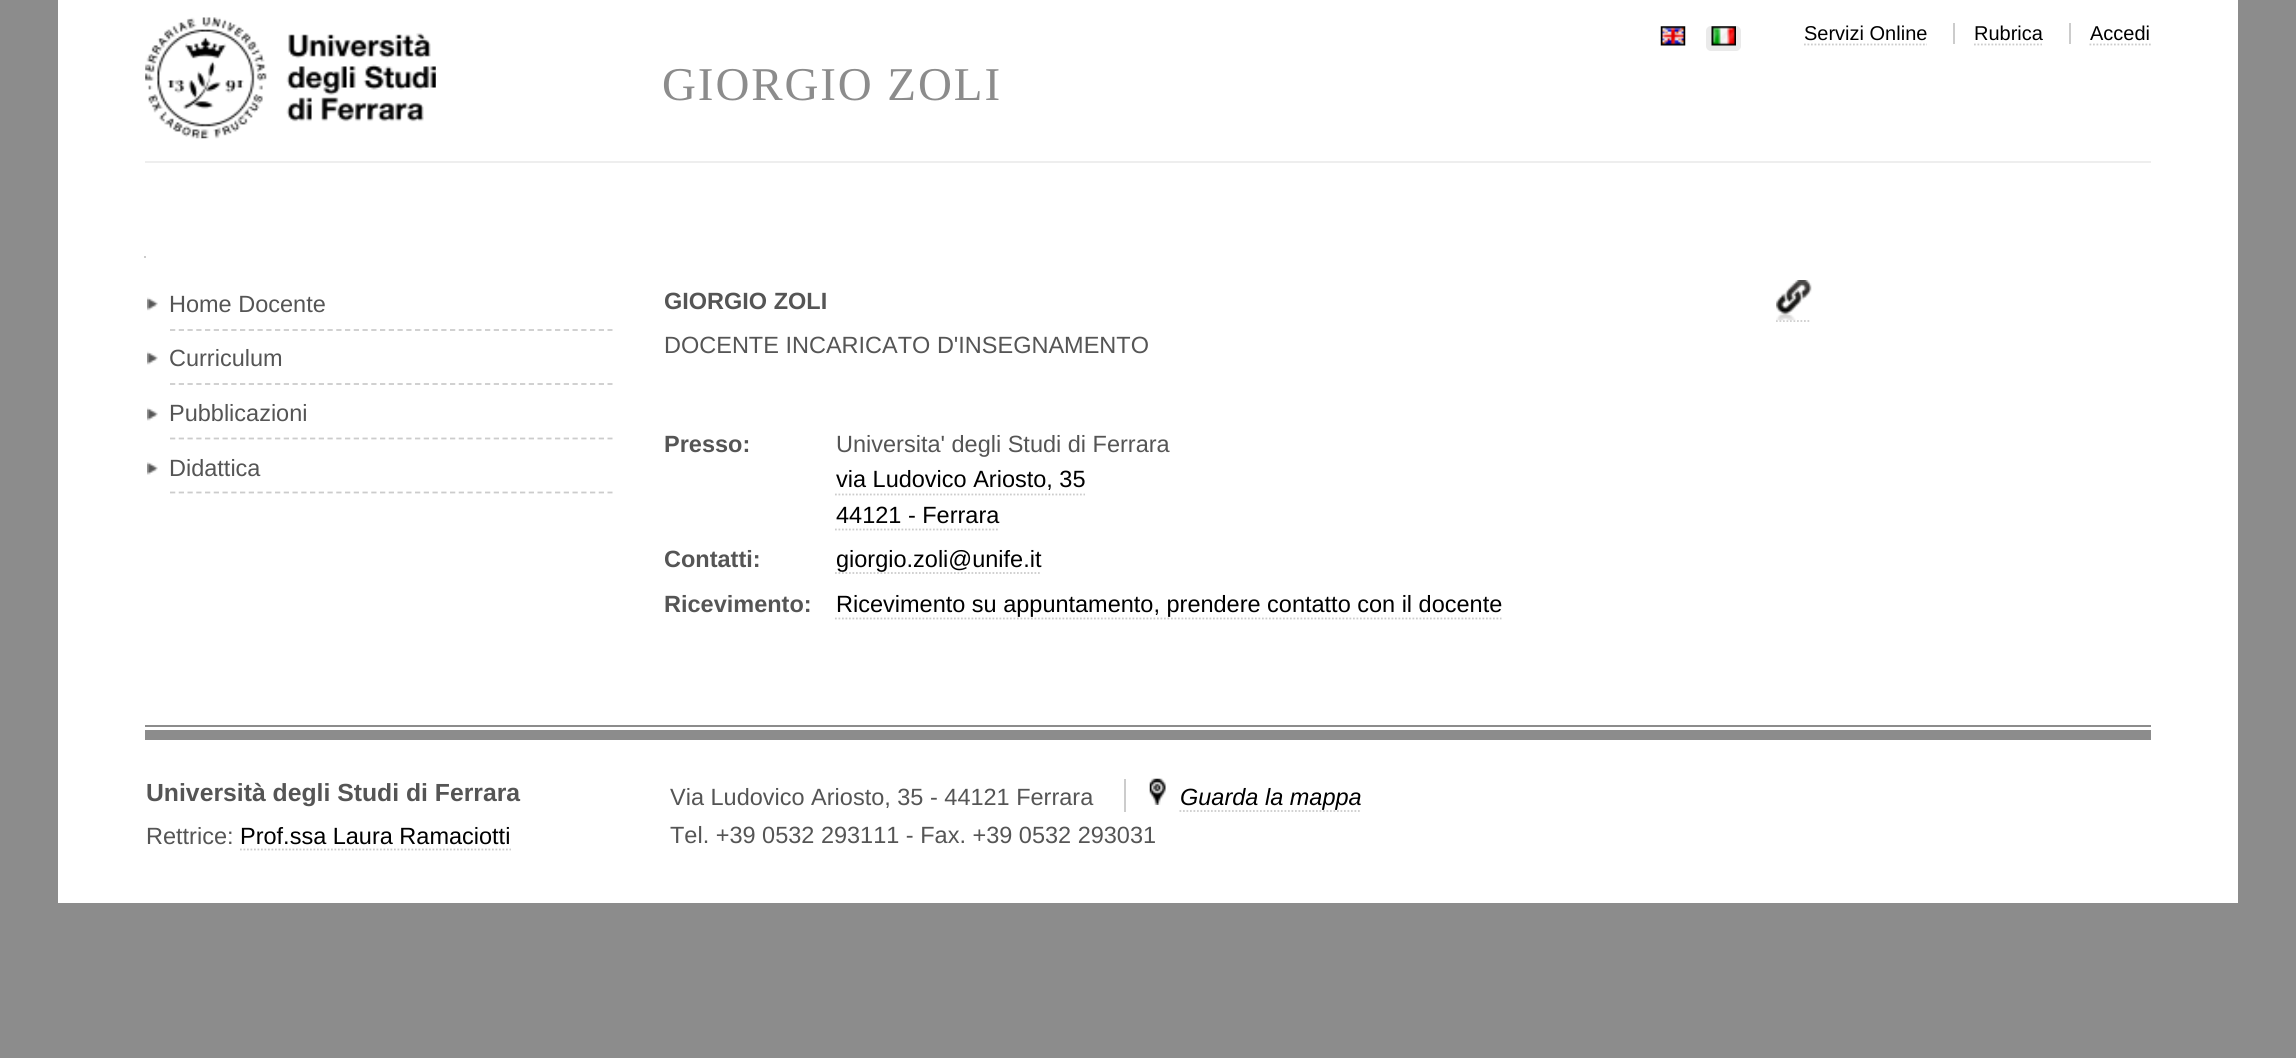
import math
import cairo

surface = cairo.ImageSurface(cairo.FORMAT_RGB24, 2296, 1058)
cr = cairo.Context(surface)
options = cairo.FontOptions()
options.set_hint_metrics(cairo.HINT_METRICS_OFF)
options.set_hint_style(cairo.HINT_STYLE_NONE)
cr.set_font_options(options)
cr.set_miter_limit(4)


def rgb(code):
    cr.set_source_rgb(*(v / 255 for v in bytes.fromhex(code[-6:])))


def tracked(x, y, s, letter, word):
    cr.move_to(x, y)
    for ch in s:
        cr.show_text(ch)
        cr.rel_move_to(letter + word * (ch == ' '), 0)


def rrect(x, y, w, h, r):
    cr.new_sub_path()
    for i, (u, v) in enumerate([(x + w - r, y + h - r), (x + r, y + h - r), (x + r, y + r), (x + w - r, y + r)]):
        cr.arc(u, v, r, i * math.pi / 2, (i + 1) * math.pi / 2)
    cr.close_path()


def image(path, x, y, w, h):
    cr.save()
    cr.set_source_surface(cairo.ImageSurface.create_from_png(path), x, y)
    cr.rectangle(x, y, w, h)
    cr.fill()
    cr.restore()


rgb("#8c8c8c")
cr.paint()
rgb("#ffffff")
cr.rectangle(58, 0, 2180, 903)
cr.fill()
rgb("#eeeeee")
cr.rectangle(145, 161, 2006, 2)
cr.fill()
image("img/1.png", 1660, 26, 26, 20)
rgb("#eaeaea")
rrect(1706, 26, 35, 25, 5)
cr.fill()
image("img/2.png", 1711, 26, 25, 20)
cr.new_path()
cr.move_to(1804, 44.5)
cr.line_to(1927, 44.5)
rgb("#cccccc")
cr.set_line_width(1.8)
cr.set_dash([1.75, 1.75])
cr.stroke()
cr.rectangle(1953, 23, 2, 21)
cr.fill()
cr.new_path()
cr.move_to(1974, 44.5)
cr.line_to(2042, 44.5)
cr.stroke()
cr.rectangle(2069, 23, 2, 21)
cr.fill()
cr.new_path()
cr.move_to(2089.5, 44.5)
cr.line_to(2151, 44.5)
cr.stroke()
image("img/3.png", 145, 17, 291, 122)
cr.rectangle(144, 256, 2, 2)
cr.fill()
cr.new_path()
cr.move_to(170, 330)
cr.line_to(612.5, 330)
cr.set_dash([5.25, 3.5])
cr.stroke()
image("img/4.png", 147, 297, 11, 14)
cr.new_path()
cr.move_to(170, 384)
cr.line_to(612.5, 384)
cr.stroke()
image("img/5.png", 147, 351, 11, 14)
cr.new_path()
cr.move_to(170, 438.5)
cr.line_to(612.5, 438.5)
cr.stroke()
image("img/5.png", 147, 407, 11, 14)
cr.new_path()
cr.move_to(170, 492.5)
cr.line_to(612.5, 492.5)
cr.stroke()
image("img/6.png", 147, 462, 11, 13)
cr.new_path()
cr.move_to(835, 494.5)
cr.line_to(1085, 494.5)
cr.set_dash([1.75, 1.75])
cr.stroke()
cr.new_path()
cr.move_to(835, 529.5)
cr.line_to(999, 529.5)
cr.stroke()
cr.new_path()
cr.move_to(835, 573)
cr.line_to(1041, 573)
cr.stroke()
cr.new_path()
cr.move_to(835, 618.5)
cr.line_to(1501.5, 618.5)
cr.stroke()
cr.new_path()
cr.move_to(1776, 321)
cr.line_to(1811, 321)
cr.stroke()
image("img/7.png", 1776, 280, 36, 41)
rgb("#8c8c8c")
cr.rectangle(145, 725, 2006, 2)
cr.fill()
cr.rectangle(145, 730, 2006, 10)
cr.fill()
cr.new_path()
cr.move_to(240, 849.5)
cr.line_to(511, 849.5)
rgb("#cccccc")
cr.stroke()
cr.rectangle(1124, 779, 2, 33)
cr.fill()
image("img/8.png", 1149, 778, 17, 27)
cr.new_path()
cr.move_to(1179.5, 811)
cr.line_to(1361.5, 811)
cr.stroke()
cr.select_font_face("Liberation Sans")
cr.set_font_size(20)
rgb("#000000")
for x, y, s in [
    (1804, 40, "Servizi Online"),
    (1974, 40, "Rubrica"),
    (2090, 40, "Accedi"),
]:
    cr.move_to(x, y)
    cr.show_text(s)
cr.select_font_face("Liberation Serif")
cr.set_font_size(47)
rgb("#8c8c8c")
tracked(662, 100, "GIORGIO ZOLI", 1.9, 0)
cr.select_font_face("Liberation Sans")
cr.set_font_size(23.5)
rgb("#555555")
for x, y, s in [
    (169, 312, "Home Docente"),
    (169, 366, "Curriculum"),
    (169, 421, "Pubblicazioni"),
    (169, 476, "Didattica"),
]:
    cr.move_to(x, y)
    cr.show_text(s)
cr.select_font_face("Liberation Sans", cairo.FONT_SLANT_NORMAL, cairo.FONT_WEIGHT_BOLD)
cr.move_to(664, 309)
cr.show_text("GIORGIO ZOLI")
cr.select_font_face("Liberation Sans")
cr.move_to(664, 353)
cr.show_text("DOCENTE INCARICATO D'INSEGNAMENTO")
cr.select_font_face("Liberation Sans", cairo.FONT_SLANT_NORMAL, cairo.FONT_WEIGHT_BOLD)
cr.move_to(664, 452)
cr.show_text("Presso:")
cr.select_font_face("Liberation Sans")
cr.move_to(836, 452)
cr.show_text("Universita' degli Studi di Ferrara")
rgb("#000000")
cr.move_to(836, 487)
cr.show_text("via Ludovico Ariosto, 35")
cr.move_to(836, 523)
cr.show_text("44121 - Ferrara")
cr.select_font_face("Liberation Sans", cairo.FONT_SLANT_NORMAL, cairo.FONT_WEIGHT_BOLD)
rgb("#555555")
cr.move_to(664, 567)
cr.show_text("Contatti:")
cr.select_font_face("Liberation Sans")
rgb("#000000")
cr.move_to(836, 567)
cr.show_text("giorgio.zoli@unife.it")
cr.select_font_face("Liberation Sans", cairo.FONT_SLANT_NORMAL, cairo.FONT_WEIGHT_BOLD)
rgb("#555555")
cr.move_to(664, 612)
cr.show_text("Ricevimento:")
cr.select_font_face("Liberation Sans")
rgb("#000000")
cr.move_to(836, 612)
cr.show_text("Ricevimento su appuntamento, prendere contatto con il docente")
cr.select_font_face("Liberation Sans", cairo.FONT_SLANT_NORMAL, cairo.FONT_WEIGHT_BOLD)
cr.set_font_size(24.75)
rgb("#555555")
cr.move_to(146, 801)
cr.show_text("Università degli Studi di Ferrara")
cr.select_font_face("Liberation Sans")
cr.set_font_size(23.5)
cr.move_to(146, 844)
cr.show_text("Rettrice:")
rgb("#000000")
cr.move_to(240, 844)
cr.show_text("Prof.ssa Laura Ramaciotti")
rgb("#555555")
cr.move_to(670, 805)
cr.show_text("Via Ludovico Ariosto, 35 - 44121 Ferrara")
cr.select_font_face("Liberation Sans", cairo.FONT_SLANT_ITALIC)
rgb("#000000")
cr.move_to(1180, 805)
cr.show_text("Guarda la mappa")
cr.select_font_face("Liberation Sans")
rgb("#555555")
cr.move_to(670, 843)
cr.show_text("Tel. +39 0532 293111 - Fax. +39 0532 293031")
surface.write_to_png("page.png")
